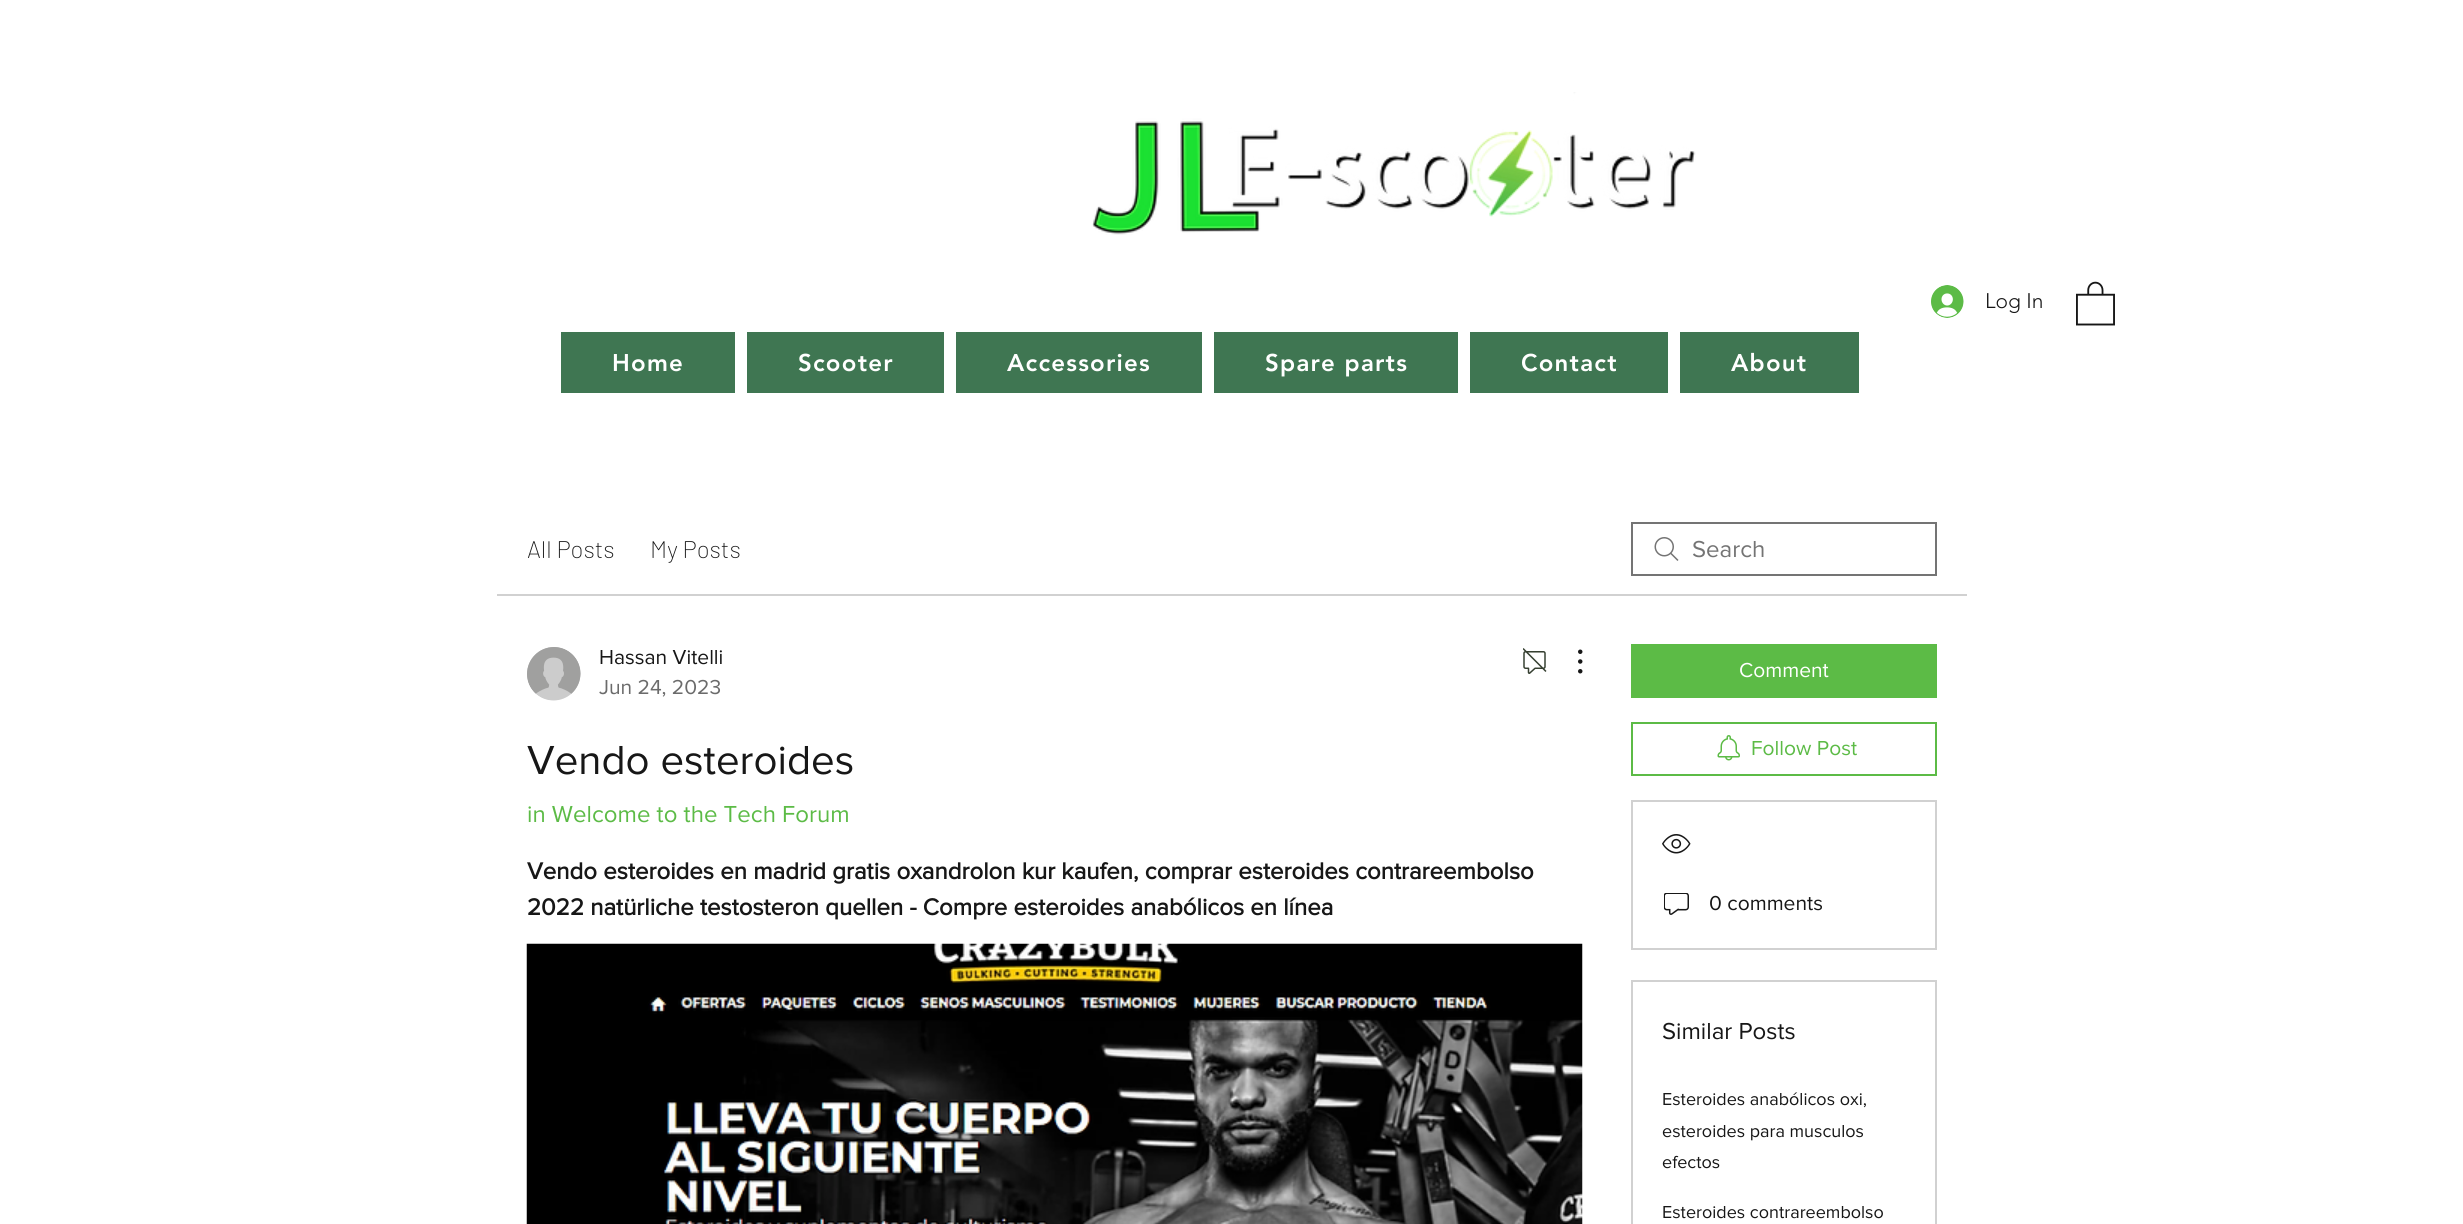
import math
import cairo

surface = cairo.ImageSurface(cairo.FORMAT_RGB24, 2463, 1224)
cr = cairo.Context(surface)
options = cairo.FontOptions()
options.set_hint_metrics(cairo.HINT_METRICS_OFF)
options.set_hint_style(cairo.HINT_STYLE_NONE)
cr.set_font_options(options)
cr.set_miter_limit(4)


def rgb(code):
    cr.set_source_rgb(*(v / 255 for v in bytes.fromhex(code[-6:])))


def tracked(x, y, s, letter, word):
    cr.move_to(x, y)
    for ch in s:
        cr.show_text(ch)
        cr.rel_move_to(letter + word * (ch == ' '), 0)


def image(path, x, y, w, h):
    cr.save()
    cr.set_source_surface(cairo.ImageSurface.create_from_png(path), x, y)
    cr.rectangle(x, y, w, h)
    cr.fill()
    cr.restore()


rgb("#ffffff")
cr.paint()
image("img/1.png", 1092, 92, 604, 143)
image("img/2.png", 1931, 285, 33, 33)
image("img/3.png", 2076, 281, 39, 45)
for x, y, w, h, color in [
    (561, 332, 174, 61, "#3f7652"),
    (747, 332, 197, 61, "#3f7652"),
    (956, 332, 246, 61, "#3f7652"),
    (1214, 332, 244, 61, "#3f7652"),
    (1470, 332, 198, 61, "#3f7652"),
    (1680, 332, 179, 61, "#3f7652"),
    (497, 594, 1470, 2, "#d1d1d1"),
]:
    rgb(color)
    cr.rectangle(x, y, w, h)
    cr.fill()
image("img/4.png", 1654, 537, 25, 24)
cr.rectangle(1632, 523, 304, 52)
rgb("#747474")
cr.stroke()
image("img/5.png", 527, 647, 54, 54)
image("img/6.png", 1523, 648, 24, 26)
image("img/7.png", 1578, 649, 5, 25)
image("img/8.png", 526, 943, 1057, 281)
rgb("#5cbb46")
cr.rectangle(1631, 644, 306, 54)
cr.fill()
cr.rectangle(1632, 723, 304, 52)
cr.stroke()
image("img/9.png", 1717, 735, 23, 26)
cr.rectangle(1632, 801, 304, 148)
rgb("#d1d1d1")
cr.stroke()
image("img/10.png", 1662, 834, 29, 20)
image("img/11.png", 1664, 893, 25, 22)
cr.rectangle(1632, 981, 304, 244)
cr.stroke()
cr.select_font_face("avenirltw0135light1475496 Light")
cr.set_font_size(21)
rgb("#171717")
cr.move_to(1985, 308)
cr.show_text("Log In")
cr.select_font_face("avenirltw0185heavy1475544 Black")
cr.set_font_size(24)
rgb("#ffffff")
for x, y, s in [
    (612, 371, "Home"),
    (798, 371, "Scooter"),
    (1007, 371, "Accessories"),
    (1265, 371, "Spare parts"),
    (1521, 371, "Contact"),
    (1731, 371, "About"),
]:
    tracked(x, y, s, 1.25, 0)
cr.select_font_face("Barlow ExtraLight")
rgb("#171717")
cr.move_to(527, 558)
cr.show_text("All Posts")
cr.move_to(650, 558)
cr.show_text("My Posts")
cr.select_font_face("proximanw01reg")
rgb("#747474")
cr.move_to(1692, 557)
cr.show_text("Search")
cr.set_font_size(21)
rgb("#171717")
cr.move_to(599, 664)
cr.show_text("Hassan Vitelli")
rgb("#6b6b6b")
cr.move_to(599, 694)
cr.show_text("Jun 24, 2023")
cr.set_font_size(42)
rgb("#171717")
cr.move_to(527, 774)
cr.show_text("Vendo esteroides")
cr.set_font_size(24)
rgb("#5cbb46")
cr.move_to(527, 822)
cr.show_text("in Welcome to the Tech Forum")
cr.select_font_face("proximanw01reg", cairo.FONT_SLANT_NORMAL, cairo.FONT_WEIGHT_BOLD)
rgb("#171717")
cr.move_to(527, 879)
cr.show_text("Vendo esteroides en madrid gratis oxandrolon kur kaufen, comprar esteroides contrareembolso")
cr.move_to(527, 915)
cr.show_text("2022 natürliche testosteron quellen - Compre esteroides anabólicos en línea")
cr.select_font_face("proximanw01reg")
cr.set_font_size(21)
rgb("#ffffff")
cr.move_to(1739, 677)
cr.show_text("Comment")
rgb("#5cbb46")
cr.move_to(1751, 755)
cr.show_text("Follow Post")
rgb("#171717")
cr.move_to(1709, 910)
cr.show_text("0 comments")
cr.set_font_size(24)
cr.move_to(1662, 1039)
cr.show_text("Similar Posts")
cr.set_font_size(18)
for x, y, s in [
    (1662, 1105, "Esteroides anabólicos oxi,"),
    (1662, 1137, "esteroides para musculos"),
    (1662, 1168, "efectos"),
    (1662, 1218, "Esteroides contrareembolso"),
]:
    cr.move_to(x, y)
    cr.show_text(s)
surface.write_to_png("page.png")
